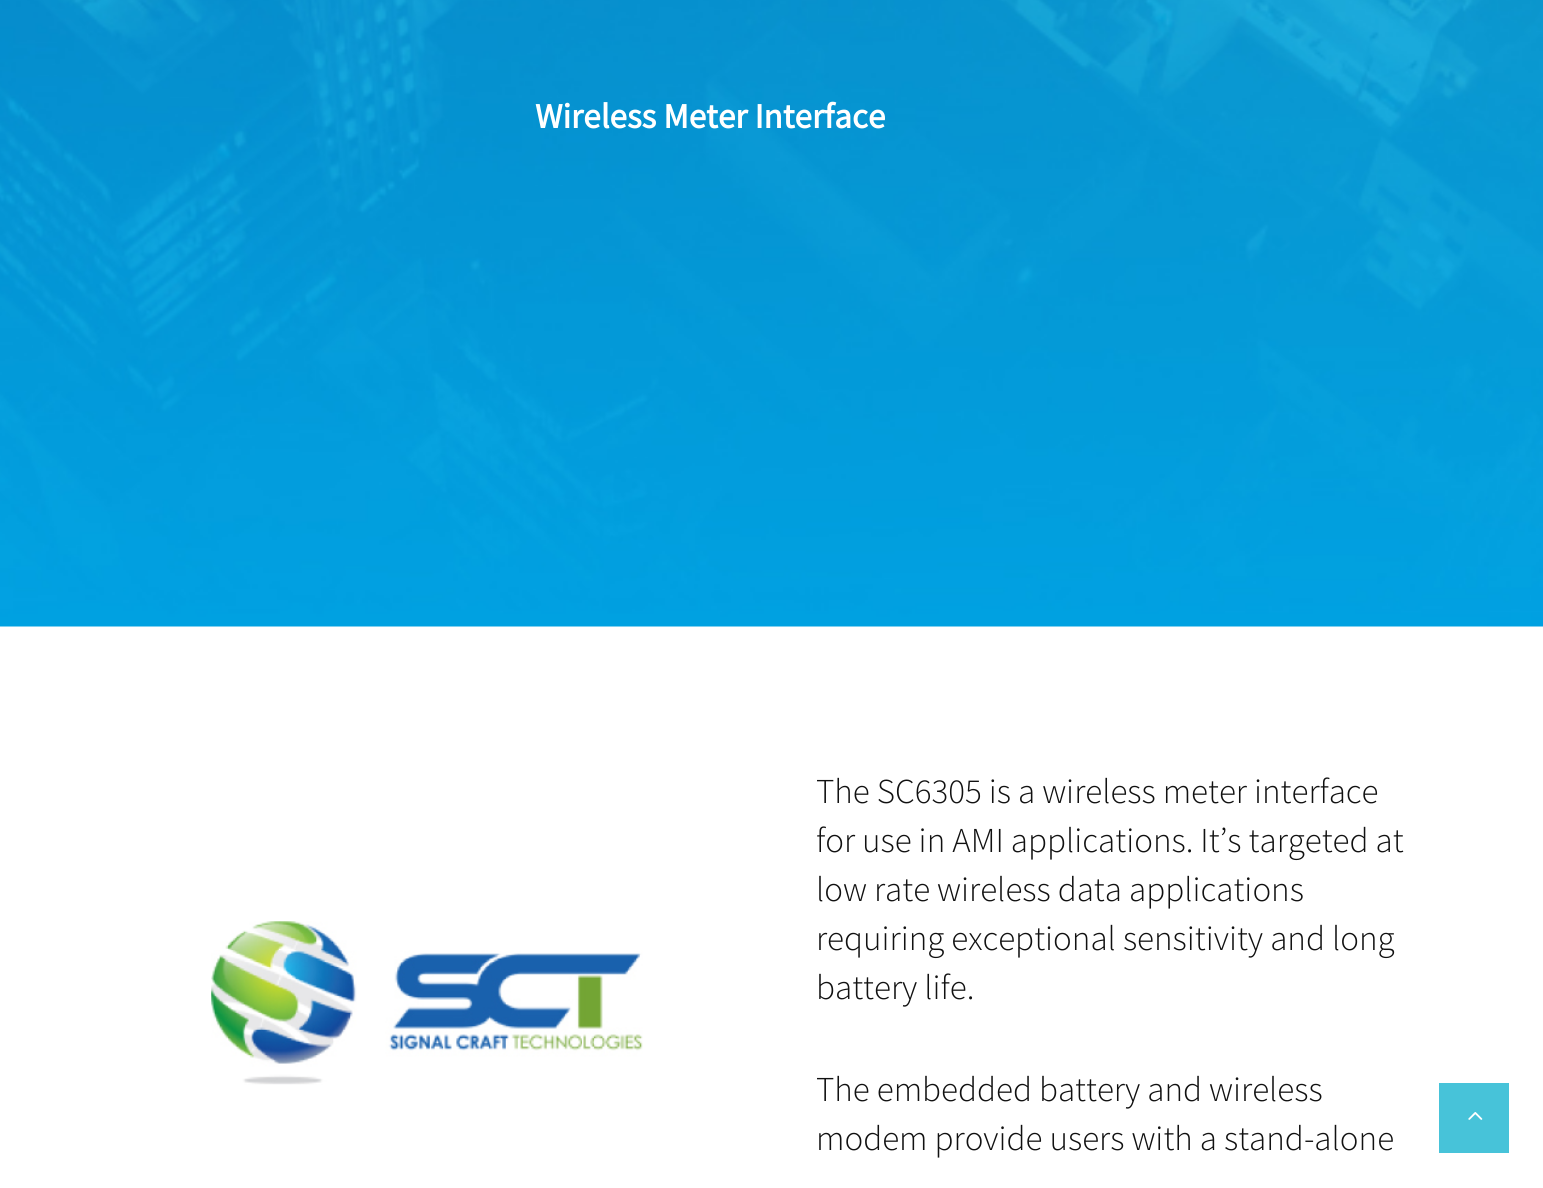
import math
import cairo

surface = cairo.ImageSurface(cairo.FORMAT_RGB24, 1543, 1188)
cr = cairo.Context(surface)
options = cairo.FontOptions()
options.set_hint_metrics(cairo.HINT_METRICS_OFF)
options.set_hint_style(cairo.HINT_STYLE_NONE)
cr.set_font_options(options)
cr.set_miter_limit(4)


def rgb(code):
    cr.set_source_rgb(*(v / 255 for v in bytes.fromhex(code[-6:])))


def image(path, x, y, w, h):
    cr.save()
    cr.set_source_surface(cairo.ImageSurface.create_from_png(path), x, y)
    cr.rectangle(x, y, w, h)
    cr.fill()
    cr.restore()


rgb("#ffffff")
cr.paint()
image("img/1.png", 0, 0, 1543, 627)
image("img/2.png", 211, 921, 432, 164)
rgb("#47c3d9")
cr.rectangle(1439, 1083, 70, 70)
cr.fill()
image("img/3.png", 1468, 1112, 15, 8)
cr.select_font_face("Source Sans Pro", cairo.FONT_SLANT_NORMAL, cairo.FONT_WEIGHT_BOLD)
cr.set_font_size(35)
rgb("#ffffff")
cr.move_to(535, 128)
cr.show_text("Wireless Meter Interface")
cr.select_font_face("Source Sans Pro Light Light")
rgb("#111111")
for x, y, s in [
    (816, 803, "The SC6305 is a wireless meter interface"),
    (816, 852, "for use in AMI applications. It’s targeted at"),
    (816, 901, "low rate wireless data applications"),
    (816, 950, "requiring exceptional sensitivity and long"),
    (816, 999, "battery life."),
    (816, 1101, "The embedded battery and wireless"),
    (816, 1150, "modem provide users with a stand-alone"),
]:
    cr.move_to(x, y)
    cr.show_text(s)
surface.write_to_png("page.png")
